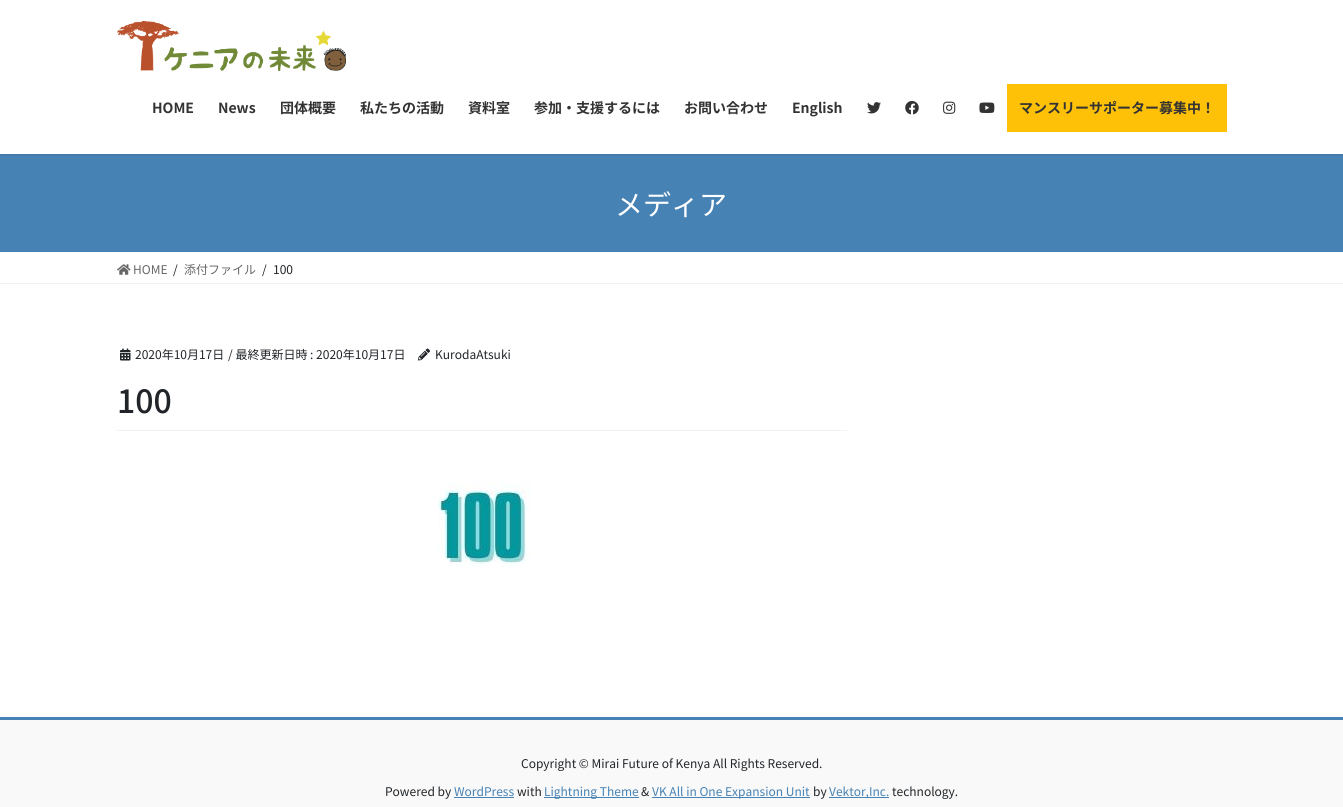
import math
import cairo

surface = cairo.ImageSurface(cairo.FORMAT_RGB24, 1343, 807)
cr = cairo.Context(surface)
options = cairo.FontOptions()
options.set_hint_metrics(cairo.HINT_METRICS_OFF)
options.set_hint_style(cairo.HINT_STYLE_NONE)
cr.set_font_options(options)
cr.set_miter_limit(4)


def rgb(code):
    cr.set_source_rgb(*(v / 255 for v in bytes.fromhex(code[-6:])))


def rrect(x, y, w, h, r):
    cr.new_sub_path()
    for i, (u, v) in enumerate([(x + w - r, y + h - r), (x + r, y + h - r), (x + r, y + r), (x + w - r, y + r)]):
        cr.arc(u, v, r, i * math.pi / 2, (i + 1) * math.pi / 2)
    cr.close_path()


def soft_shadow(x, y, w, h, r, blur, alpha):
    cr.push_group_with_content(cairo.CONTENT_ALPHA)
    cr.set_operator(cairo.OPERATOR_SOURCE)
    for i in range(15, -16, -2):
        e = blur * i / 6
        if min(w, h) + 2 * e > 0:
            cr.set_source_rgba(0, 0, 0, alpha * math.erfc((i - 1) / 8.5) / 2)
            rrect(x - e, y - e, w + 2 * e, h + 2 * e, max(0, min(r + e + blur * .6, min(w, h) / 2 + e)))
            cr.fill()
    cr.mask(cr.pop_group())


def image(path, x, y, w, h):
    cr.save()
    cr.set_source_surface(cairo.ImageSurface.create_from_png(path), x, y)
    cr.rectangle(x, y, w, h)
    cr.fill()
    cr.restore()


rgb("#ffffff")
cr.paint()
rgb("#4682b4")
cr.rectangle(0, 154, 1343, 98)
cr.fill()
cr.save()
cr.rectangle(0, 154, 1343, 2)
cr.clip()
rgb("#000000")
soft_shadow(0, 1, 1343, 154, 0, 1.5, 0.1)
cr.restore()
image("img/1.png", 117, 21, 229, 50)
image("img/2.png", 867, 102, 14, 12)
image("img/3.png", 905, 101, 14, 14)
image("img/4.png", 943, 101, 13, 13)
image("img/5.png", 979, 102, 16, 11)
rgb("#ffc107")
cr.rectangle(1007, 84, 220, 48)
cr.fill()
rgb("#f2f2f2")
cr.rectangle(0, 283, 1343, 1)
cr.fill()
image("img/6.png", 117, 264, 14, 11)
cr.rectangle(117, 430, 730, 1)
cr.fill()
image("img/7.png", 120, 348, 11, 13)
image("img/8.png", 418, 348, 12, 13)
image("img/9.png", 438, 482, 94, 85)
for x, y, w, h, color in [
    (0, 720, 1343, 87, "#f9f9f9"),
    (0, 717, 1343, 3, "#4682b4"),
    (454, 797, 60, 1, "#4682b4"),
    (544, 797, 95, 1, "#4682b4"),
    (652, 797, 158, 1, "#4682b4"),
    (829, 797, 60, 1, "#4682b4"),
]:
    rgb(color)
    cr.rectangle(x, y, w, h)
    cr.fill()
cr.select_font_face("Noto Sans JP", cairo.FONT_SLANT_NORMAL, cairo.FONT_WEIGHT_BOLD)
cr.set_font_size(14)
rgb("#333333")
for x, y, s in [
    (152, 113, "HOME"),
    (218, 113, "News"),
    (280, 113, "団体概要"),
    (360, 113, "私たちの活動"),
    (468, 113, "資料室"),
    (534, 113, "参加・支援するには"),
    (684, 113, "お問い合わせ"),
    (792, 113, "English"),
    (1019, 113, "マンスリーサポーター募集中！"),
]:
    cr.move_to(x, y)
    cr.show_text(s)
cr.select_font_face("Noto Sans JP")
cr.set_font_size(28)
rgb("#ffffff")
cr.move_to(615, 215)
cr.show_text("メディア")
cr.set_font_size(12)
rgb("#666666")
cr.move_to(133, 274)
cr.show_text("HOME")
rgb("#212529")
cr.move_to(173, 274)
cr.show_text("/")
rgb("#666666")
cr.move_to(184, 274)
cr.show_text("添付ファイル")
rgb("#212529")
for x, y, s in [
    (262, 274, "/"),
    (273, 274, "100"),
    (135, 359, "2020年10月17日"),
    (228, 359, "/ 最終更新日時 : 2020年10月17日"),
    (435, 359, "KurodaAtsuki"),
]:
    cr.move_to(x, y)
    cr.show_text(s)
cr.select_font_face("Noto Sans JP Medium")
cr.set_font_size(32)
cr.move_to(117, 413)
cr.show_text("100")
cr.select_font_face("Noto Sans JP")
cr.set_font_size(12)
cr.move_to(521, 768)
cr.show_text("Copyright © Mirai Future of Kenya All Rights Reserved.")
cr.move_to(385, 796)
cr.show_text("Powered by")
rgb("#4682b4")
cr.move_to(454, 796)
cr.show_text("WordPress")
rgb("#212529")
cr.move_to(517, 796)
cr.show_text("with")
rgb("#4682b4")
cr.move_to(544, 796)
cr.show_text("Lightning Theme")
rgb("#212529")
cr.move_to(641, 796)
cr.show_text("&")
rgb("#4682b4")
cr.move_to(652, 796)
cr.show_text("VK All in One Expansion Unit")
rgb("#212529")
cr.move_to(813, 796)
cr.show_text("by")
rgb("#4682b4")
cr.move_to(829, 796)
cr.show_text("Vektor,Inc.")
rgb("#212529")
cr.move_to(892, 796)
cr.show_text("technology.")
surface.write_to_png("page.png")
